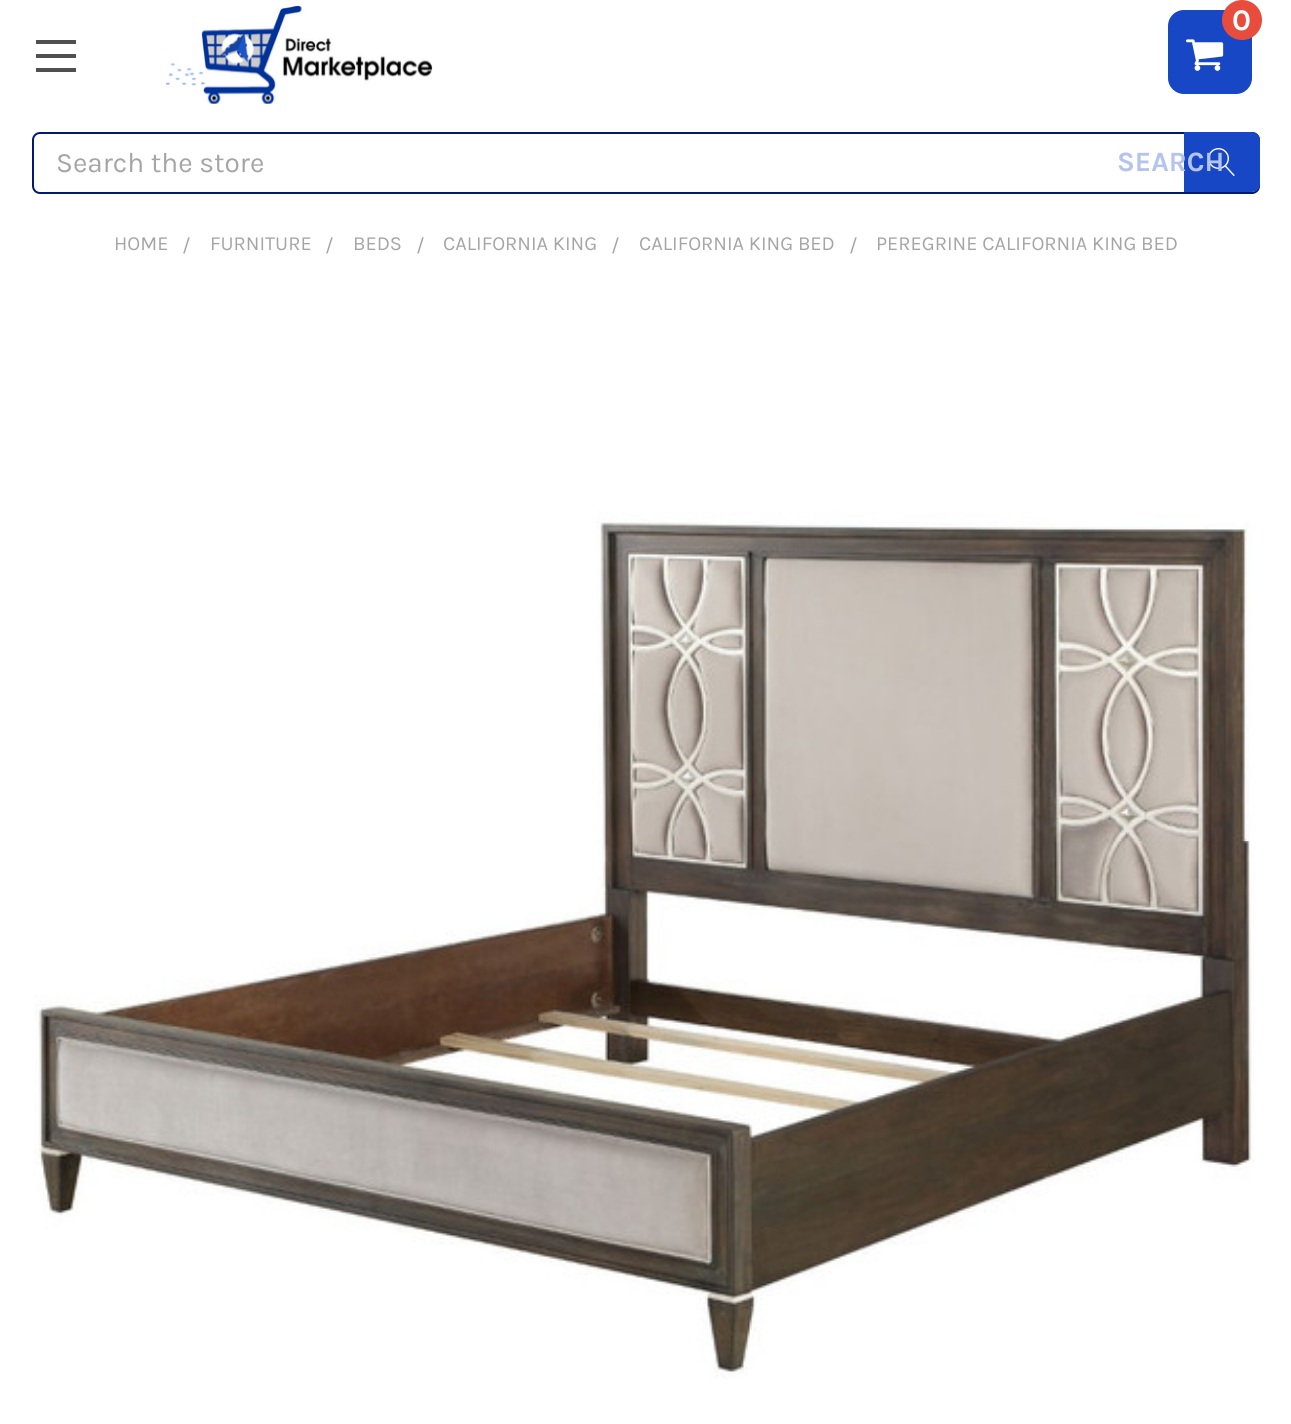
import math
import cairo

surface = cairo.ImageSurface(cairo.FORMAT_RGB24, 1291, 1424)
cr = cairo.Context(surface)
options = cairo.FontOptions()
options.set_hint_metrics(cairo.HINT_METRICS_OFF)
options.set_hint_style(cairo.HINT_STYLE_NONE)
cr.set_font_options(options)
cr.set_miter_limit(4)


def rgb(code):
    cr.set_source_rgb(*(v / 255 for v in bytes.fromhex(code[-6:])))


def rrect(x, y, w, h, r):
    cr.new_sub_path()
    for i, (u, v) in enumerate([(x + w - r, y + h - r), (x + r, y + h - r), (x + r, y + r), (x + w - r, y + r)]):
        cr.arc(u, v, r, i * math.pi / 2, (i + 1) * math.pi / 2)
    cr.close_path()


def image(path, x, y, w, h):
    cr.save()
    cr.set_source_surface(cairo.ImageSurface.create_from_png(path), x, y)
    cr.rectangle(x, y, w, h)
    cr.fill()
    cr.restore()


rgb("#ffffff")
cr.paint()
image("img/1.png", 166, 6, 267, 98)
rgb("#1847c6")
rrect(1168, 10, 84, 84, 16)
cr.fill()
image("img/2.png", 1186, 39, 38, 32)
rgb("#e74c3c")
cr.arc(1242, 20, 20, 0, 2 * math.pi)
cr.fill()
for x, y, w, h, color in [
    (36, 54, 40, 4, "#505050"),
    (36, 40, 40, 4, "#505050"),
    (36, 68, 40, 4, "#505050"),
]:
    rgb(color)
    cr.rectangle(x, y, w, h)
    cr.fill()
rrect(33, 133, 1226, 60, 7)
rgb("#02196e")
cr.stroke()
rgb("#1847c6")
cr.new_path()
cr.move_to(1184, 132)
cr.line_to(1252, 132)
cr.curve_to(1256.5, 132, 1260, 135.5, 1260, 140)
cr.line_to(1260, 184)
cr.curve_to(1260, 188.5, 1256.5, 192, 1252, 192)
cr.line_to(1184, 192)
cr.close_path()
cr.fill()
image("img/3.png", 1208, 148, 27, 28)
image("img/4.png", 34, 511, 1221, 868)
cr.select_font_face("Karla", cairo.FONT_SLANT_NORMAL, cairo.FONT_WEIGHT_BOLD)
cr.set_font_size(30)
rgb("#ffffff")
cr.move_to(1232, 30)
cr.show_text("0")
cr.select_font_face("Karla")
cr.set_font_size(28)
rgb("#a5a5a5")
cr.move_to(56, 172)
cr.show_text("Search the store")
cr.select_font_face("Karla", cairo.FONT_SLANT_NORMAL, cairo.FONT_WEIGHT_BOLD)
rgb("#b5c4ed")
cr.move_to(1117, 171)
cr.show_text("SEARCH")
cr.select_font_face("Karla")
cr.set_font_size(20)
rgb("#a5a5a5")
for x, y, s in [
    (114, 250, "HOME"),
    (182, 252, "/"),
    (210, 250, "FURNITURE"),
    (325, 252, "/"),
    (353, 250, "BEDS"),
    (416, 252, "/"),
    (443, 250, "CALIFORNIA KING"),
    (611, 252, "/"),
    (639, 250, "CALIFORNIA KING BED"),
    (849, 252, "/"),
    (876, 250, "PEREGRINE CALIFORNIA KING BED"),
]:
    cr.move_to(x, y)
    cr.show_text(s)
surface.write_to_png("page.png")
